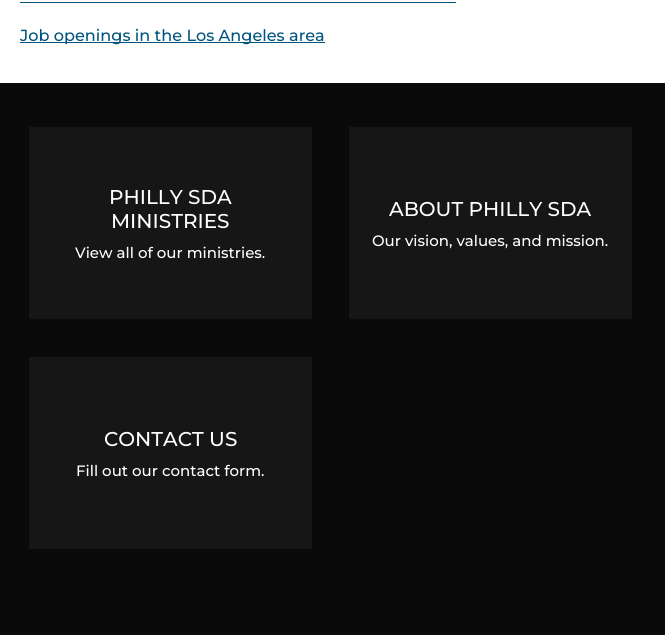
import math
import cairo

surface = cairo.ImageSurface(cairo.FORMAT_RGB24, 665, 635)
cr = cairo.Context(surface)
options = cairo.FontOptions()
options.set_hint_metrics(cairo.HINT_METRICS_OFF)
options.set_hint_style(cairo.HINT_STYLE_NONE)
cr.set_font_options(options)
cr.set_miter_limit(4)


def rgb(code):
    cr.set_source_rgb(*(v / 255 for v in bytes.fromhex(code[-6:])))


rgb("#ffffff")
cr.paint()
for x, y, w, h, color in [
    (20, 2, 436, 1, "#00537c"),
    (20, 42, 305, 1, "#00537c"),
    (0, 83, 665, 552, "#0a0a0a"),
    (29, 127, 283, 192, "#161616"),
    (349, 127, 283, 192, "#161616"),
    (29, 357, 283, 192, "#161616"),
]:
    rgb(color)
    cr.rectangle(x, y, w, h)
    cr.fill()
cr.select_font_face("Montserrat Thin")
cr.set_font_size(16.1)
rgb("#00537c")
cr.move_to(20, 41)
cr.show_text("Job openings in the Los Angeles area")
cr.set_font_size(20)
rgb("#ffffff")
cr.move_to(109, 204)
cr.show_text("PHILLY SDA")
cr.move_to(111, 228)
cr.show_text("MINISTRIES")
cr.set_font_size(15)
cr.move_to(75, 258)
cr.show_text("View all of our ministries.")
cr.set_font_size(20)
cr.move_to(389, 216)
cr.show_text("ABOUT PHILLY SDA")
cr.set_font_size(15)
cr.move_to(372, 246)
cr.show_text("Our vision, values, and mission.")
cr.set_font_size(20)
cr.move_to(104, 446)
cr.show_text("CONTACT US")
cr.set_font_size(15)
cr.move_to(76, 476)
cr.show_text("Fill out our contact form.")
surface.write_to_png("page.png")
